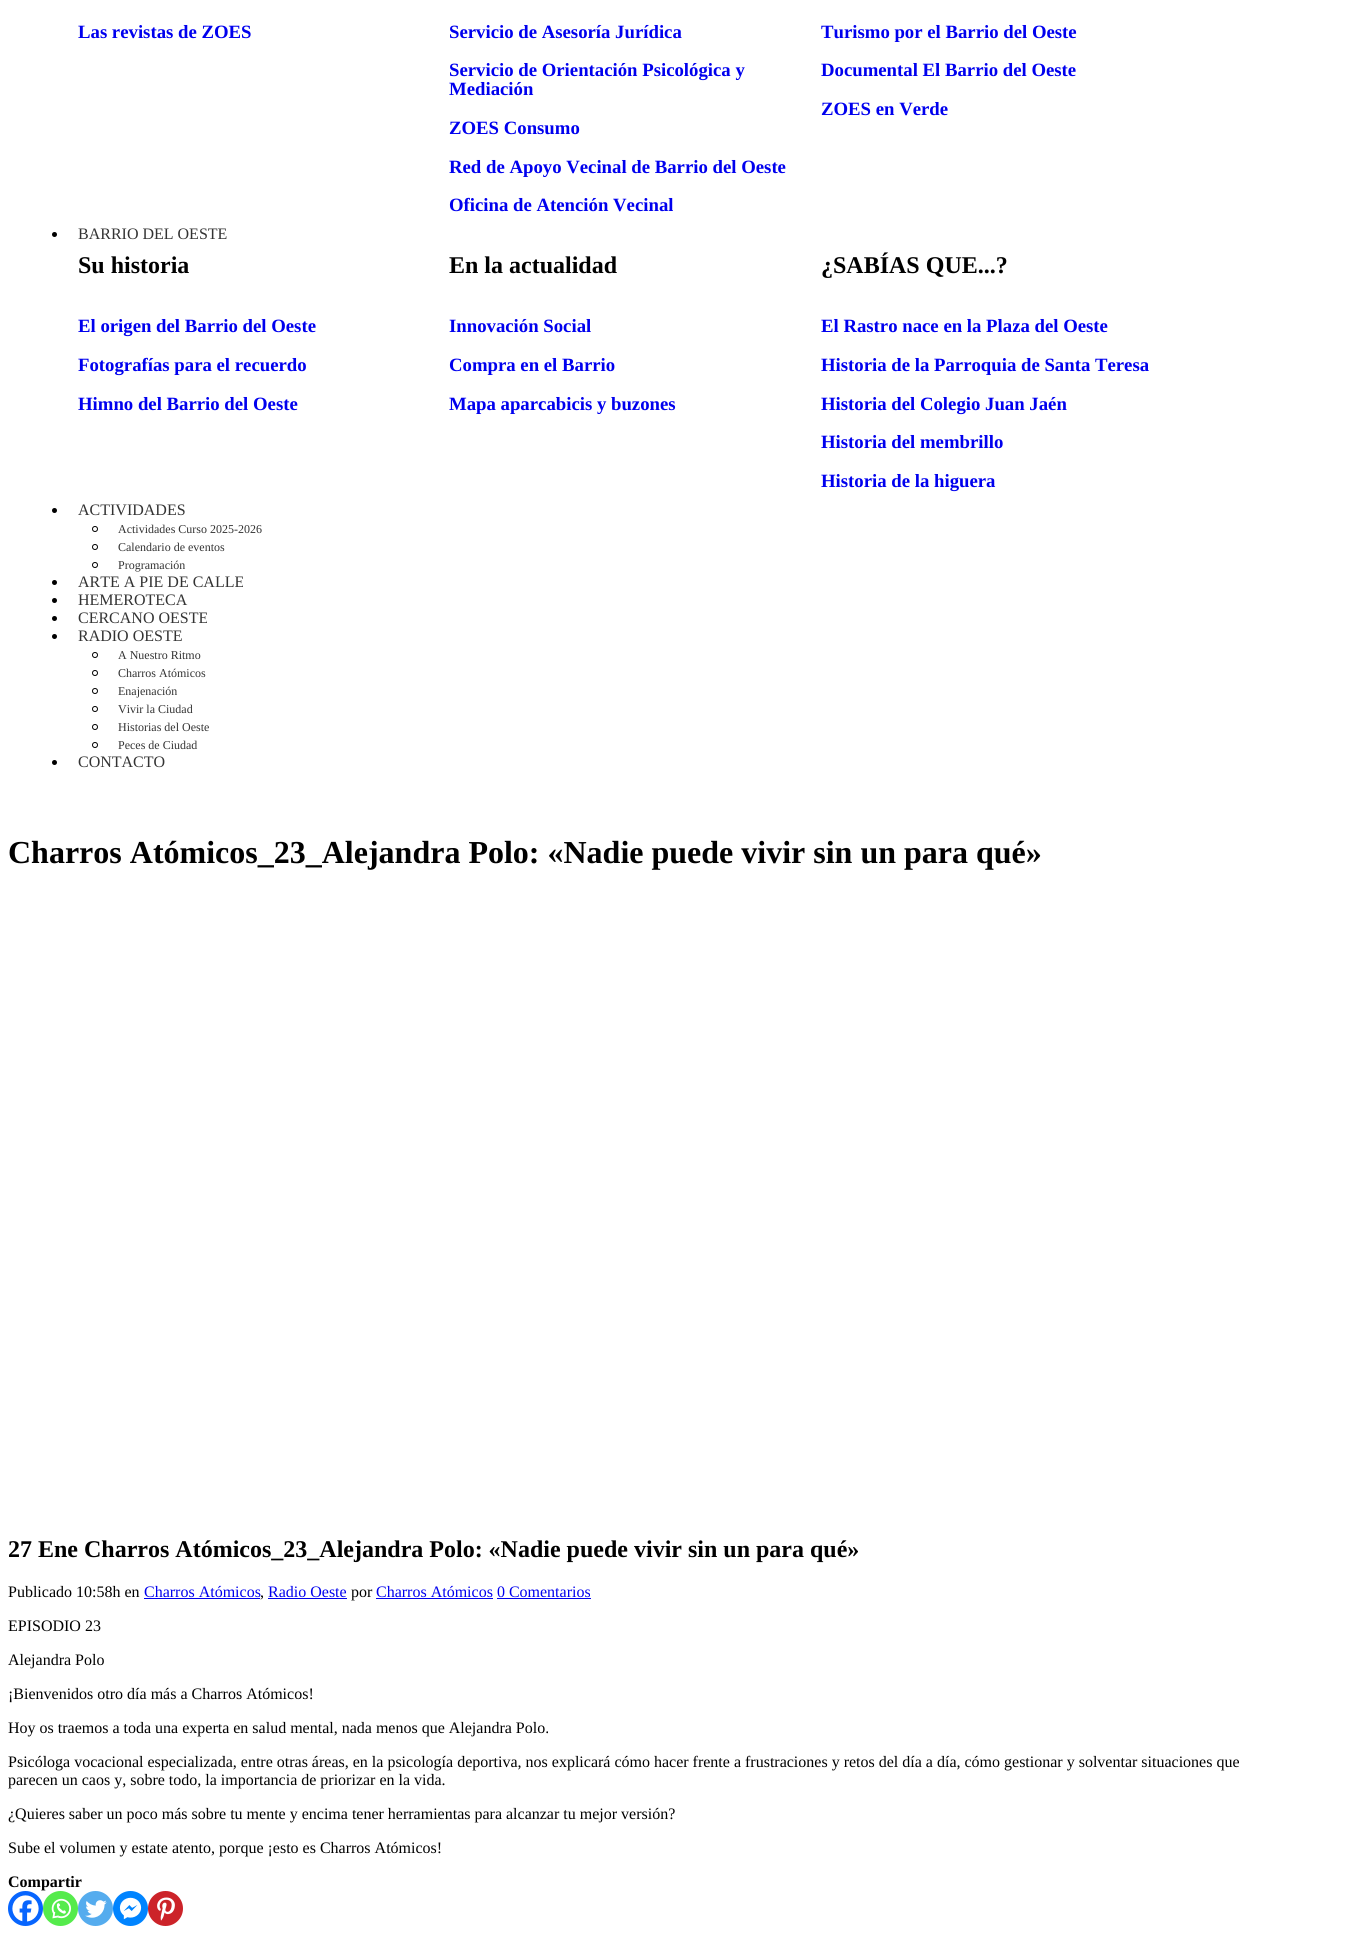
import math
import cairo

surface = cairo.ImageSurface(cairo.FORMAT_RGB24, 1366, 1944)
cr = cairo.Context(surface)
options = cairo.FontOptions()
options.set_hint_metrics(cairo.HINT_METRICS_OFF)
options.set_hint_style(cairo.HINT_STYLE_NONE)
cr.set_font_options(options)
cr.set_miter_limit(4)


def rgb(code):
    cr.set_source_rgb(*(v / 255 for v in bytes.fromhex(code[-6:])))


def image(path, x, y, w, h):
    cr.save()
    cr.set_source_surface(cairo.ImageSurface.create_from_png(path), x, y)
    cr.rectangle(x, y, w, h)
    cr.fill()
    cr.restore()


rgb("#ffffff")
cr.paint()
rgb("#000000")
cr.arc(54.5, 234.5, 2.5, 0, 2 * math.pi)
cr.fill()
cr.arc(54.5, 510.5, 2.5, 0, 2 * math.pi)
cr.fill()
cr.arc(95, 529, 2.5, 0, 2 * math.pi)
cr.set_line_width(1)
cr.stroke()
cr.arc(95, 547, 2.5, 0, 2 * math.pi)
cr.stroke()
cr.arc(95, 565, 2.5, 0, 2 * math.pi)
cr.stroke()
cr.arc(54.5, 582.5, 2.5, 0, 2 * math.pi)
cr.fill()
cr.arc(54.5, 600.5, 2.5, 0, 2 * math.pi)
cr.fill()
cr.arc(54.5, 618.5, 2.5, 0, 2 * math.pi)
cr.fill()
cr.arc(54.5, 636.5, 2.5, 0, 2 * math.pi)
cr.fill()
cr.arc(95, 655, 2.5, 0, 2 * math.pi)
cr.stroke()
cr.arc(95, 673, 2.5, 0, 2 * math.pi)
cr.stroke()
cr.arc(95, 691, 2.5, 0, 2 * math.pi)
cr.stroke()
cr.arc(95, 709, 2.5, 0, 2 * math.pi)
cr.stroke()
cr.arc(95, 727, 2.5, 0, 2 * math.pi)
cr.stroke()
cr.arc(95, 745, 2.5, 0, 2 * math.pi)
cr.stroke()
cr.arc(54.5, 762.5, 2.5, 0, 2 * math.pi)
cr.fill()
for x, y, w, h, color in [
    (144, 1598, 116, 1, "#0000ee"),
    (268, 1598, 79, 1, "#0000ee"),
    (376, 1598, 117, 1, "#0000ee"),
    (497, 1598, 94, 1, "#0000ee"),
]:
    rgb(color)
    cr.rectangle(x, y, w, h)
    cr.fill()
rgb("#0765fe")
cr.arc(25.5, 1908.5, 17.5, 0, 2 * math.pi)
cr.fill()
image("img/1.png", 12, 1895, 27, 27)
rgb("#55eb4c")
cr.arc(60.5, 1908.5, 17.5, 0, 2 * math.pi)
cr.fill()
image("img/2.png", 51, 1898, 20, 21)
rgb("#55acee")
cr.arc(95.5, 1908.5, 17.5, 0, 2 * math.pi)
cr.fill()
image("img/3.png", 85, 1900, 22, 18)
rgb("#0084ff")
cr.arc(130.5, 1908.5, 17.5, 0, 2 * math.pi)
cr.fill()
image("img/4.png", 119, 1897, 23, 23)
rgb("#cc2329")
cr.arc(165.5, 1908.5, 17.5, 0, 2 * math.pi)
cr.fill()
image("img/5.png", 157, 1897, 18, 24)
cr.select_font_face("Liberation Serif", cairo.FONT_SLANT_NORMAL, cairo.FONT_WEIGHT_BOLD)
cr.set_font_size(18.75)
rgb("#0000ee")
for x, y, s in [
    (78, 38, "Las revistas de ZOES"),
    (449, 38, "Servicio de Asesoría Jurídica"),
    (449, 76, "Servicio de Orientación Psicológica y"),
    (449, 95, "Mediación"),
    (449, 134, "ZOES Consumo"),
    (449, 173, "Red de Apoyo Vecinal de Barrio del Oeste"),
    (449, 211, "Oficina de Atención Vecinal"),
    (821, 38, "Turismo por el Barrio del Oeste"),
    (821, 76, "Documental El Barrio del Oeste"),
    (821, 115, "ZOES en Verde"),
]:
    cr.move_to(x, y)
    cr.show_text(s)
cr.select_font_face("Liberation Serif")
cr.set_font_size(16)
rgb("#333333")
cr.move_to(78, 239)
cr.show_text("BARRIO DEL OESTE")
cr.select_font_face("Liberation Serif", cairo.FONT_SLANT_NORMAL, cairo.FONT_WEIGHT_BOLD)
cr.set_font_size(24)
rgb("#000000")
cr.move_to(78, 273)
cr.show_text("Su historia")
cr.set_font_size(18.75)
rgb("#0000ee")
for x, y, s in [
    (78, 332, "El origen del Barrio del Oeste"),
    (78, 371, "Fotografías para el recuerdo"),
    (78, 410, "Himno del Barrio del Oeste"),
]:
    cr.move_to(x, y)
    cr.show_text(s)
cr.set_font_size(24)
rgb("#000000")
cr.move_to(449, 273)
cr.show_text("En la actualidad")
cr.set_font_size(18.75)
rgb("#0000ee")
for x, y, s in [
    (449, 332, "Innovación Social"),
    (449, 371, "Compra en el Barrio"),
    (449, 410, "Mapa aparcabicis y buzones"),
]:
    cr.move_to(x, y)
    cr.show_text(s)
cr.set_font_size(24)
rgb("#000000")
cr.move_to(821, 273)
cr.show_text("¿SABÍAS QUE...?")
cr.set_font_size(18.75)
rgb("#0000ee")
for x, y, s in [
    (821, 332, "El Rastro nace en la Plaza del Oeste"),
    (821, 371, "Historia de la Parroquia de Santa Teresa"),
    (821, 410, "Historia del Colegio Juan Jaén"),
    (821, 448, "Historia del membrillo"),
    (821, 487, "Historia de la higuera"),
]:
    cr.move_to(x, y)
    cr.show_text(s)
cr.select_font_face("Liberation Serif")
cr.set_font_size(16)
rgb("#333333")
cr.move_to(78, 515)
cr.show_text("ACTIVIDADES")
cr.set_font_size(12)
for x, y, s in [
    (118, 533, "Actividades Curso 2025-2026"),
    (118, 551, "Calendario de eventos"),
    (118, 569, "Programación"),
]:
    cr.move_to(x, y)
    cr.show_text(s)
cr.set_font_size(16)
for x, y, s in [
    (78, 587, "ARTE A PIE DE CALLE"),
    (78, 605, "HEMEROTECA"),
    (78, 623, "CERCANO OESTE"),
    (78, 641, "RADIO OESTE"),
]:
    cr.move_to(x, y)
    cr.show_text(s)
cr.set_font_size(12)
for x, y, s in [
    (118, 659, "A Nuestro Ritmo"),
    (118, 677, "Charros Atómicos"),
    (118, 695, "Enajenación"),
    (118, 713, "Vivir la Ciudad"),
    (118, 731, "Historias del Oeste"),
    (118, 749, "Peces de Ciudad"),
]:
    cr.move_to(x, y)
    cr.show_text(s)
cr.set_font_size(16)
cr.move_to(78, 767)
cr.show_text("CONTACTO")
cr.select_font_face("Liberation Serif", cairo.FONT_SLANT_NORMAL, cairo.FONT_WEIGHT_BOLD)
cr.set_font_size(32)
rgb("#000000")
cr.move_to(8, 863)
cr.show_text("Charros Atómicos_23_Alejandra Polo: «Nadie puede vivir sin un para qué»")
cr.set_font_size(24)
cr.move_to(8, 1557)
cr.show_text("27 Ene Charros Atómicos_23_Alejandra Polo: «Nadie puede vivir sin un para qué»")
cr.select_font_face("Liberation Serif")
cr.set_font_size(16)
cr.move_to(8, 1597)
cr.show_text("Publicado 10:58h en")
rgb("#0000ee")
cr.move_to(144, 1597)
cr.show_text("Charros Atómicos")
rgb("#000000")
cr.move_to(260, 1597)
cr.show_text(",")
rgb("#0000ee")
cr.move_to(268, 1597)
cr.show_text("Radio Oeste")
rgb("#000000")
cr.move_to(351, 1597)
cr.show_text("por")
rgb("#0000ee")
cr.move_to(376, 1597)
cr.show_text("Charros Atómicos 0 Comentarios")
rgb("#000000")
for x, y, s in [
    (8, 1631, "EPISODIO 23"),
    (8, 1665, "Alejandra Polo"),
    (8, 1699, "¡Bienvenidos otro día más a Charros Atómicos!"),
    (8, 1733, "Hoy os traemos a toda una experta en salud mental, nada menos que Alejandra Polo."),
    (8, 1767, "Psicóloga vocacional especializada, entre otras áreas, en la psicología deportiva, nos explicará cómo hacer frente a frustraciones y retos del día a día, cómo gestionar y solventar situaciones que"),
    (8, 1785, "parecen un caos y, sobre todo, la importancia de priorizar en la vida."),
    (8, 1819, "¿Quieres saber un poco más sobre tu mente y encima tener herramientas para alcanzar tu mejor versión?"),
    (8, 1853, "Sube el volumen y estate atento, porque ¡esto es Charros Atómicos!"),
]:
    cr.move_to(x, y)
    cr.show_text(s)
cr.select_font_face("Liberation Serif", cairo.FONT_SLANT_NORMAL, cairo.FONT_WEIGHT_BOLD)
cr.move_to(8, 1887)
cr.show_text("Compartir")
surface.write_to_png("page.png")
